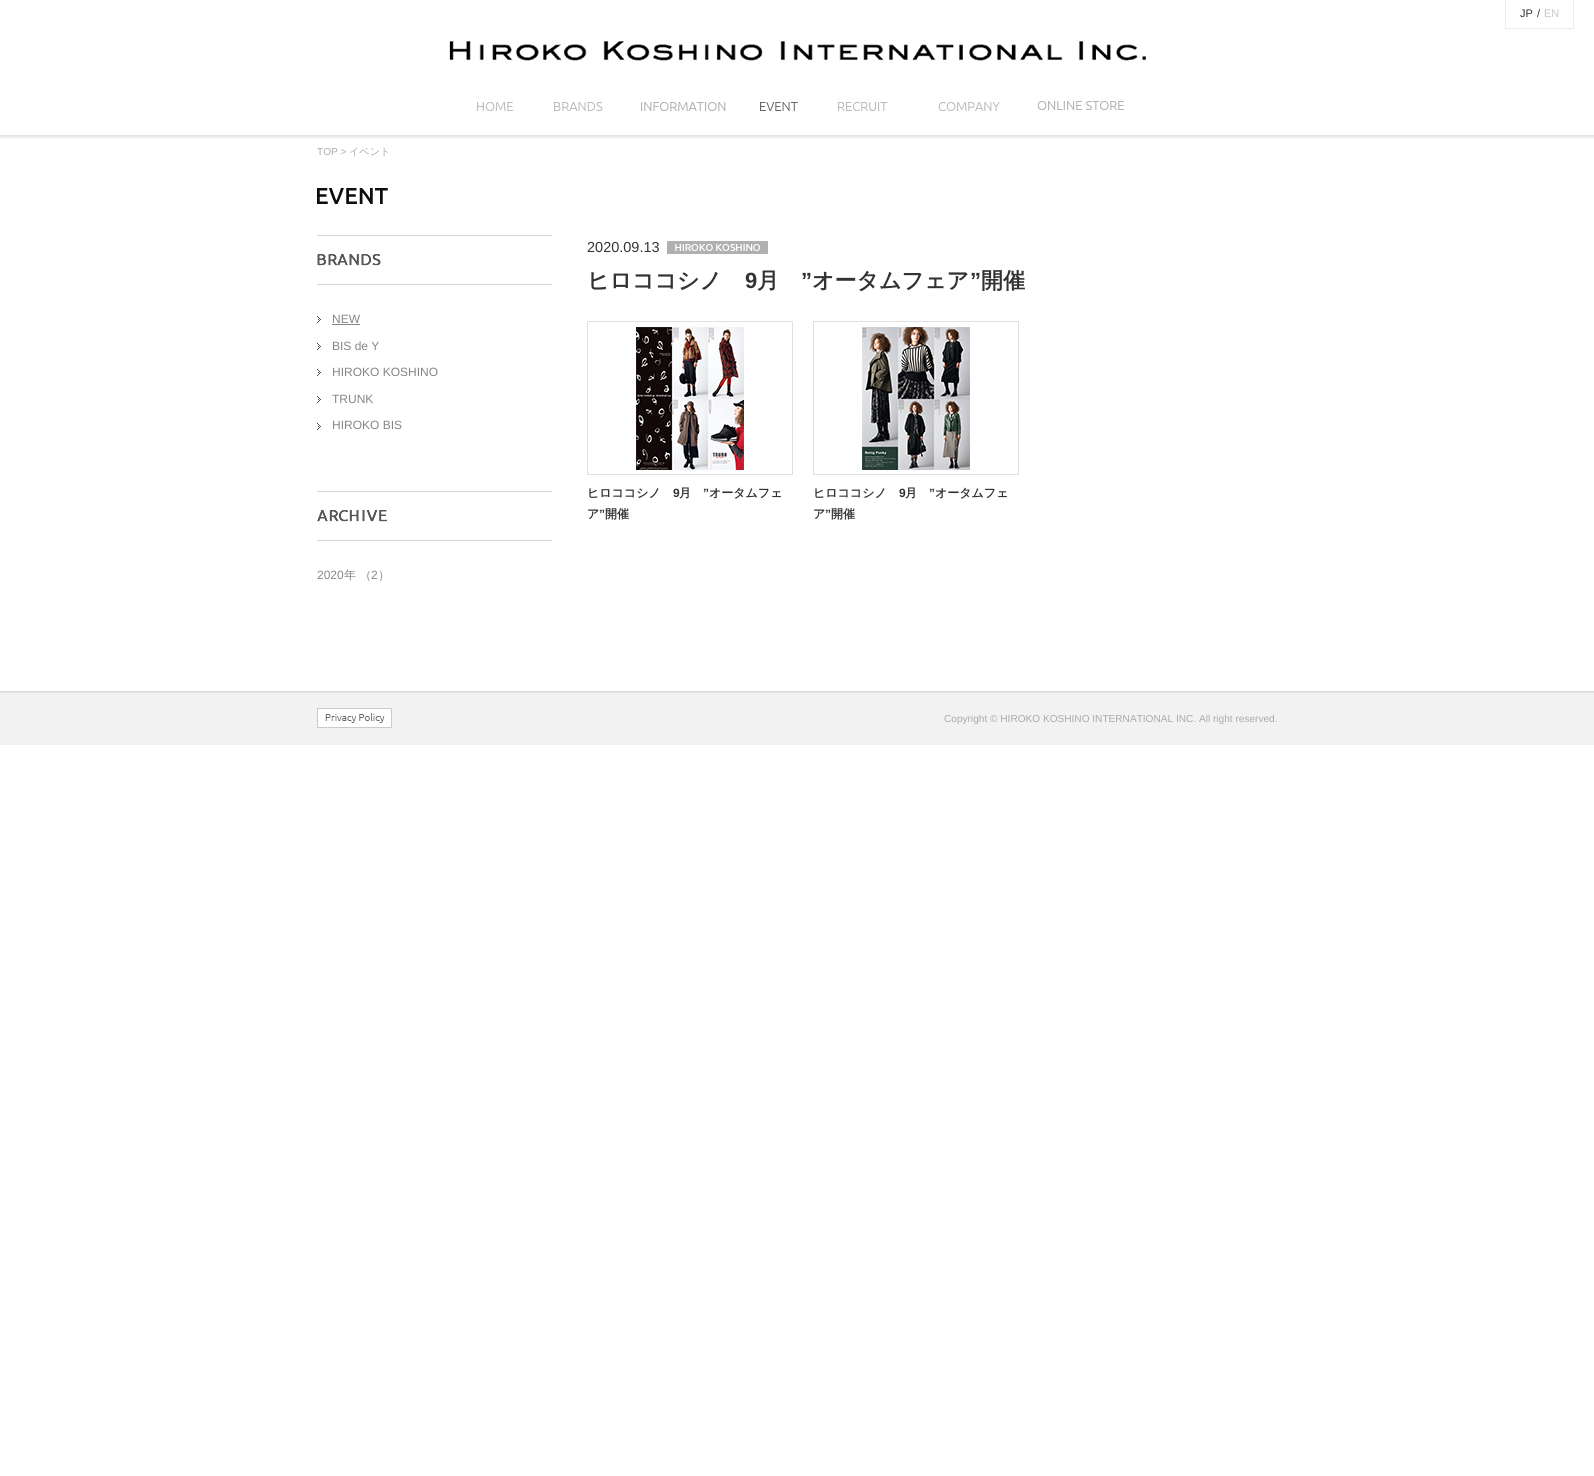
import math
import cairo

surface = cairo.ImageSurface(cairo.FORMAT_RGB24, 1594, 1476)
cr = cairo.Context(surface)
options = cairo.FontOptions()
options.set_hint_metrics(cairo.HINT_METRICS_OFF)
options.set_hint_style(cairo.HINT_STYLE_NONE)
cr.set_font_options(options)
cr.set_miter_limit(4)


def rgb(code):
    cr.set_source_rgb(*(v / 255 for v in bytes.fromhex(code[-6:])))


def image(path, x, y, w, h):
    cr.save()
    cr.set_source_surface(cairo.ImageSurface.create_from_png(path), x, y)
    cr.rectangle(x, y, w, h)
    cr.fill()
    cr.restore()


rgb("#ffffff")
cr.paint()
for x, y, w, h, color in [
    (1573, 0, 1, 29, "#ebebeb"),
    (1505, 28, 69, 1, "#ebebeb"),
    (1505, 0, 1, 29, "#ebebeb"),
]:
    rgb(color)
    cr.rectangle(x, y, w, h)
    cr.fill()
image("img/1.png", 449, 40, 697, 21)
image("img/2.png", 477, 102, 37, 9)
image("img/3.png", 554, 102, 49, 9)
image("img/4.png", 641, 102, 85, 9)
image("img/5.png", 760, 102, 38, 9)
image("img/6.png", 838, 102, 50, 9)
image("img/7.png", 938, 102, 62, 9)
image("img/8.png", 1037, 101, 88, 9)
image("img/9.png", 0, 135, 1594, 4)
image("img/10.png", 317, 188, 71, 16)
rgb("#d7d7d7")
cr.rectangle(317, 235, 235, 1)
cr.fill()
cr.rectangle(317, 284, 235, 1)
cr.fill()
image("img/11.png", 317, 254, 64, 12)
image("img/12.png", 317, 316, 4, 7)
rgb("#868686")
cr.rectangle(332, 324, 28, 1)
cr.fill()
image("img/12.png", 317, 343, 4, 7)
image("img/12.png", 317, 369, 4, 7)
image("img/12.png", 317, 396, 4, 7)
image("img/12.png", 317, 423, 4, 7)
rgb("#d7d7d7")
cr.rectangle(317, 491, 235, 1)
cr.fill()
cr.rectangle(317, 540, 235, 1)
cr.fill()
image("img/13.png", 317, 510, 70, 12)
image("img/14.png", 667, 241, 101, 13)
cr.rectangle(587.5, 321.5, 205, 153)
rgb("#e1dfdf")
cr.set_line_width(1)
cr.stroke()
image("img/15.png", 636, 326, 108, 144)
cr.rectangle(813.5, 321.5, 205, 153)
cr.stroke()
image("img/16.png", 862, 327, 108, 143)
for x, y, w, h, color in [
    (0, 693, 1594, 52, "#f2f2f2"),
    (0, 691, 1594, 1, "#dad9d9"),
    (0, 692, 1594, 1, "#e5e4e4"),
]:
    rgb(color)
    cr.rectangle(x, y, w, h)
    cr.fill()
image("img/17.png", 317, 708, 75, 20)
cr.select_font_face("Liberation Sans")
cr.set_font_size(11)
rgb("#333333")
cr.move_to(1520, 17)
cr.show_text("JP")
cr.move_to(1537, 17)
cr.show_text("/")
rgb("#c7c7c7")
cr.move_to(1544, 17)
cr.show_text("EN")
cr.set_font_size(10.1)
rgb("#aaaaaa")
cr.move_to(317, 155)
cr.show_text("TOP >")
cr.select_font_face("WenQuanYi Zen Hei Medium")
cr.move_to(349, 155)
cr.show_text("イベント")
cr.select_font_face("Liberation Sans")
cr.set_font_size(12)
rgb("#868686")
for x, y, s in [
    (332, 323, "NEW"),
    (332, 350, "BIS de Y"),
    (332, 376, "HIROKO KOSHINO"),
    (332, 403, "TRUNK"),
    (332, 429, "HIROKO BIS"),
    (317, 579, "2020"),
]:
    cr.move_to(x, y)
    cr.show_text(s)
cr.select_font_face("WenQuanYi Zen Hei Medium")
cr.move_to(344, 579)
cr.show_text("年 （")
cr.select_font_face("Liberation Sans")
cr.move_to(371, 579)
cr.show_text("2")
cr.select_font_face("WenQuanYi Zen Hei Medium")
cr.move_to(378, 579)
cr.show_text("）")
cr.select_font_face("Liberation Sans")
cr.set_font_size(14.5)
rgb("#333333")
cr.move_to(587, 252)
cr.show_text("2020.09.13")
cr.select_font_face("WenQuanYi Zen Hei", cairo.FONT_SLANT_NORMAL, cairo.FONT_WEIGHT_BOLD)
cr.set_font_size(22)
cr.move_to(587, 288)
cr.show_text("ヒロココシノ")
cr.select_font_face("Liberation Sans", cairo.FONT_SLANT_NORMAL, cairo.FONT_WEIGHT_BOLD)
cr.move_to(745, 288)
cr.show_text("9")
cr.select_font_face("WenQuanYi Zen Hei", cairo.FONT_SLANT_NORMAL, cairo.FONT_WEIGHT_BOLD)
cr.move_to(757, 288)
cr.show_text("月")
cr.select_font_face("Liberation Sans", cairo.FONT_SLANT_NORMAL, cairo.FONT_WEIGHT_BOLD)
cr.move_to(801, 288)
cr.show_text("”")
cr.select_font_face("WenQuanYi Zen Hei", cairo.FONT_SLANT_NORMAL, cairo.FONT_WEIGHT_BOLD)
cr.move_to(812, 288)
cr.show_text("オータムフェア")
cr.select_font_face("Liberation Sans", cairo.FONT_SLANT_NORMAL, cairo.FONT_WEIGHT_BOLD)
cr.move_to(970, 288)
cr.show_text("”")
cr.select_font_face("WenQuanYi Zen Hei", cairo.FONT_SLANT_NORMAL, cairo.FONT_WEIGHT_BOLD)
cr.move_to(981, 288)
cr.show_text("開催")
cr.set_font_size(12)
cr.move_to(587, 497)
cr.show_text("ヒロココシノ")
cr.select_font_face("Liberation Sans", cairo.FONT_SLANT_NORMAL, cairo.FONT_WEIGHT_BOLD)
cr.move_to(673, 497)
cr.show_text("9")
cr.select_font_face("WenQuanYi Zen Hei", cairo.FONT_SLANT_NORMAL, cairo.FONT_WEIGHT_BOLD)
cr.move_to(679, 497)
cr.show_text("月")
cr.select_font_face("Liberation Sans", cairo.FONT_SLANT_NORMAL, cairo.FONT_WEIGHT_BOLD)
cr.move_to(703, 497)
cr.show_text("”")
cr.select_font_face("WenQuanYi Zen Hei", cairo.FONT_SLANT_NORMAL, cairo.FONT_WEIGHT_BOLD)
cr.move_to(709, 497)
cr.show_text("オータムフェ")
cr.move_to(587, 518)
cr.show_text("ア")
cr.select_font_face("Liberation Sans", cairo.FONT_SLANT_NORMAL, cairo.FONT_WEIGHT_BOLD)
cr.move_to(599, 518)
cr.show_text("”")
cr.select_font_face("WenQuanYi Zen Hei", cairo.FONT_SLANT_NORMAL, cairo.FONT_WEIGHT_BOLD)
cr.move_to(605, 518)
cr.show_text("開催")
cr.move_to(813, 497)
cr.show_text("ヒロココシノ")
cr.select_font_face("Liberation Sans", cairo.FONT_SLANT_NORMAL, cairo.FONT_WEIGHT_BOLD)
cr.move_to(899, 497)
cr.show_text("9")
cr.select_font_face("WenQuanYi Zen Hei", cairo.FONT_SLANT_NORMAL, cairo.FONT_WEIGHT_BOLD)
cr.move_to(905, 497)
cr.show_text("月")
cr.select_font_face("Liberation Sans", cairo.FONT_SLANT_NORMAL, cairo.FONT_WEIGHT_BOLD)
cr.move_to(929, 497)
cr.show_text("”")
cr.select_font_face("WenQuanYi Zen Hei", cairo.FONT_SLANT_NORMAL, cairo.FONT_WEIGHT_BOLD)
cr.move_to(935, 497)
cr.show_text("オータムフェ")
cr.move_to(813, 518)
cr.show_text("ア")
cr.select_font_face("Liberation Sans", cairo.FONT_SLANT_NORMAL, cairo.FONT_WEIGHT_BOLD)
cr.move_to(825, 518)
cr.show_text("”")
cr.select_font_face("WenQuanYi Zen Hei", cairo.FONT_SLANT_NORMAL, cairo.FONT_WEIGHT_BOLD)
cr.move_to(831, 518)
cr.show_text("開催")
cr.select_font_face("Liberation Sans")
cr.set_font_size(10.1)
rgb("#aaaaaa")
cr.move_to(944, 722)
cr.show_text("Copyright © HIROKO KOSHINO INTERNATIONAL INC. All right reserved.")
surface.write_to_png("page.png")
